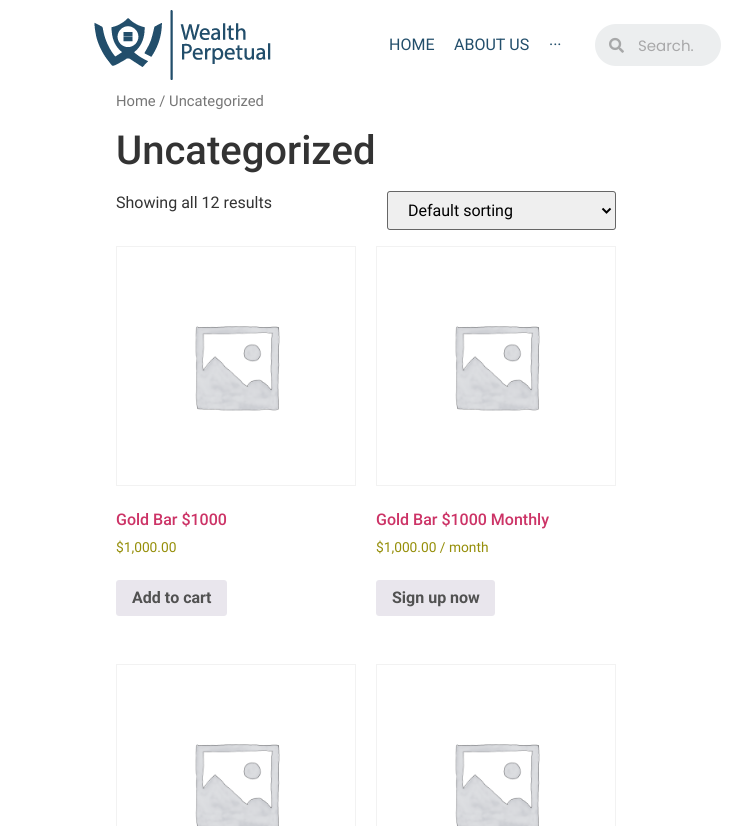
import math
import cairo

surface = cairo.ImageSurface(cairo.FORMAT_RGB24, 731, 826)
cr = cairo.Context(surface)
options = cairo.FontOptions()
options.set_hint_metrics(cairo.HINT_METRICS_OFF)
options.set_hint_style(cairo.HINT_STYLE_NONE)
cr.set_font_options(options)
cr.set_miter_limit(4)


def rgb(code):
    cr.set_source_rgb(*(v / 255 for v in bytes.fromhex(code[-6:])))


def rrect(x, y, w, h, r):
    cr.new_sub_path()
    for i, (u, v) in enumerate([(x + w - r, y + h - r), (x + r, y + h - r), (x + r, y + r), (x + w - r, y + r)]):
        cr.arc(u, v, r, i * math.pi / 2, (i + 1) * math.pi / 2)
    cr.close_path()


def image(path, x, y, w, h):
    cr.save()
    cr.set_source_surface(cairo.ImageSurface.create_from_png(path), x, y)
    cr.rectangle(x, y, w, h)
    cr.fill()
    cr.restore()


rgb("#ffffff")
cr.paint()
image("img/1.png", 94, 10, 177, 70)
rgb("#eceeef")
rrect(595, 24, 126, 42, 21)
cr.fill()
image("img/2.png", 609, 37, 15, 16)
rgb("#efefef")
rrect(387.5, 191.5, 228, 38, 2.5)
cr.fill_preserve()
rgb("#666666")
cr.set_line_width(1)
cr.stroke()
cr.new_path()
cr.move_to(602.5, 208.5)
cr.line_to(606.5, 212.5)
cr.line_to(610.5, 208.5)
rgb("#000000")
cr.set_line_width(2)
cr.stroke()
cr.rectangle(116.5, 246.5, 239, 239)
rgb("#f2f2f2")
cr.set_line_width(1)
cr.stroke()
image("img/3.png", 195, 326, 85, 85)
rgb("#e9e6ed")
rrect(116, 580, 111, 36, 3)
cr.fill()
cr.rectangle(376.5, 246.5, 239, 239)
rgb("#f2f2f2")
cr.stroke()
image("img/3.png", 455, 326, 85, 85)
rgb("#e9e6ed")
rrect(376, 580, 119, 36, 3)
cr.fill()
cr.rectangle(116.5, 664.5, 239, 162)
rgb("#f2f2f2")
cr.stroke()
image("img/4.png", 195, 744, 85, 82)
cr.rectangle(376.5, 664.5, 239, 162)
cr.stroke()
image("img/4.png", 455, 744, 85, 82)
cr.select_font_face("Roboto")
cr.set_font_size(16)
rgb("#224e6b")
for x, y, s in [
    (389, 50, "HOME"),
    (454, 50, "ABOUT US"),
    (549, 50, "···"),
]:
    cr.move_to(x, y)
    cr.show_text(s)
cr.select_font_face("Poppins")
cr.set_font_size(15)
rgb("#a8a8a9")
cr.move_to(638, 51)
cr.show_text("Search.")
cr.select_font_face("Roboto")
cr.set_font_size(14.75)
rgb("#767676")
cr.move_to(116, 106)
cr.show_text("Home / Uncategorized")
cr.select_font_face("Roboto Medium")
cr.set_font_size(40)
rgb("#333333")
cr.move_to(116, 164)
cr.show_text("Uncategorized")
cr.select_font_face("Roboto")
cr.set_font_size(16)
cr.move_to(116, 208)
cr.show_text("Showing all 12 results")
rgb("#000000")
cr.move_to(408, 216)
cr.show_text("Default sorting")
cr.select_font_face("Roboto Medium")
rgb("#cc3366")
cr.move_to(116, 525)
cr.show_text("Gold Bar $1000")
cr.select_font_face("Roboto")
cr.set_font_size(13.75)
rgb("#958e09")
cr.move_to(116, 552)
cr.show_text("$1,000.00")
cr.select_font_face("Roboto", cairo.FONT_SLANT_NORMAL, cairo.FONT_WEIGHT_BOLD)
cr.set_font_size(16)
rgb("#515151")
cr.move_to(132, 603)
cr.show_text("Add to cart")
cr.select_font_face("Roboto Medium")
rgb("#cc3366")
cr.move_to(376, 525)
cr.show_text("Gold Bar $1000 Monthly")
cr.select_font_face("Roboto")
cr.set_font_size(13.75)
rgb("#958e09")
cr.move_to(376, 552)
cr.show_text("$1,000.00 / month")
cr.select_font_face("Roboto", cairo.FONT_SLANT_NORMAL, cairo.FONT_WEIGHT_BOLD)
cr.set_font_size(16)
rgb("#515151")
cr.move_to(392, 603)
cr.show_text("Sign up now")
surface.write_to_png("page.png")
